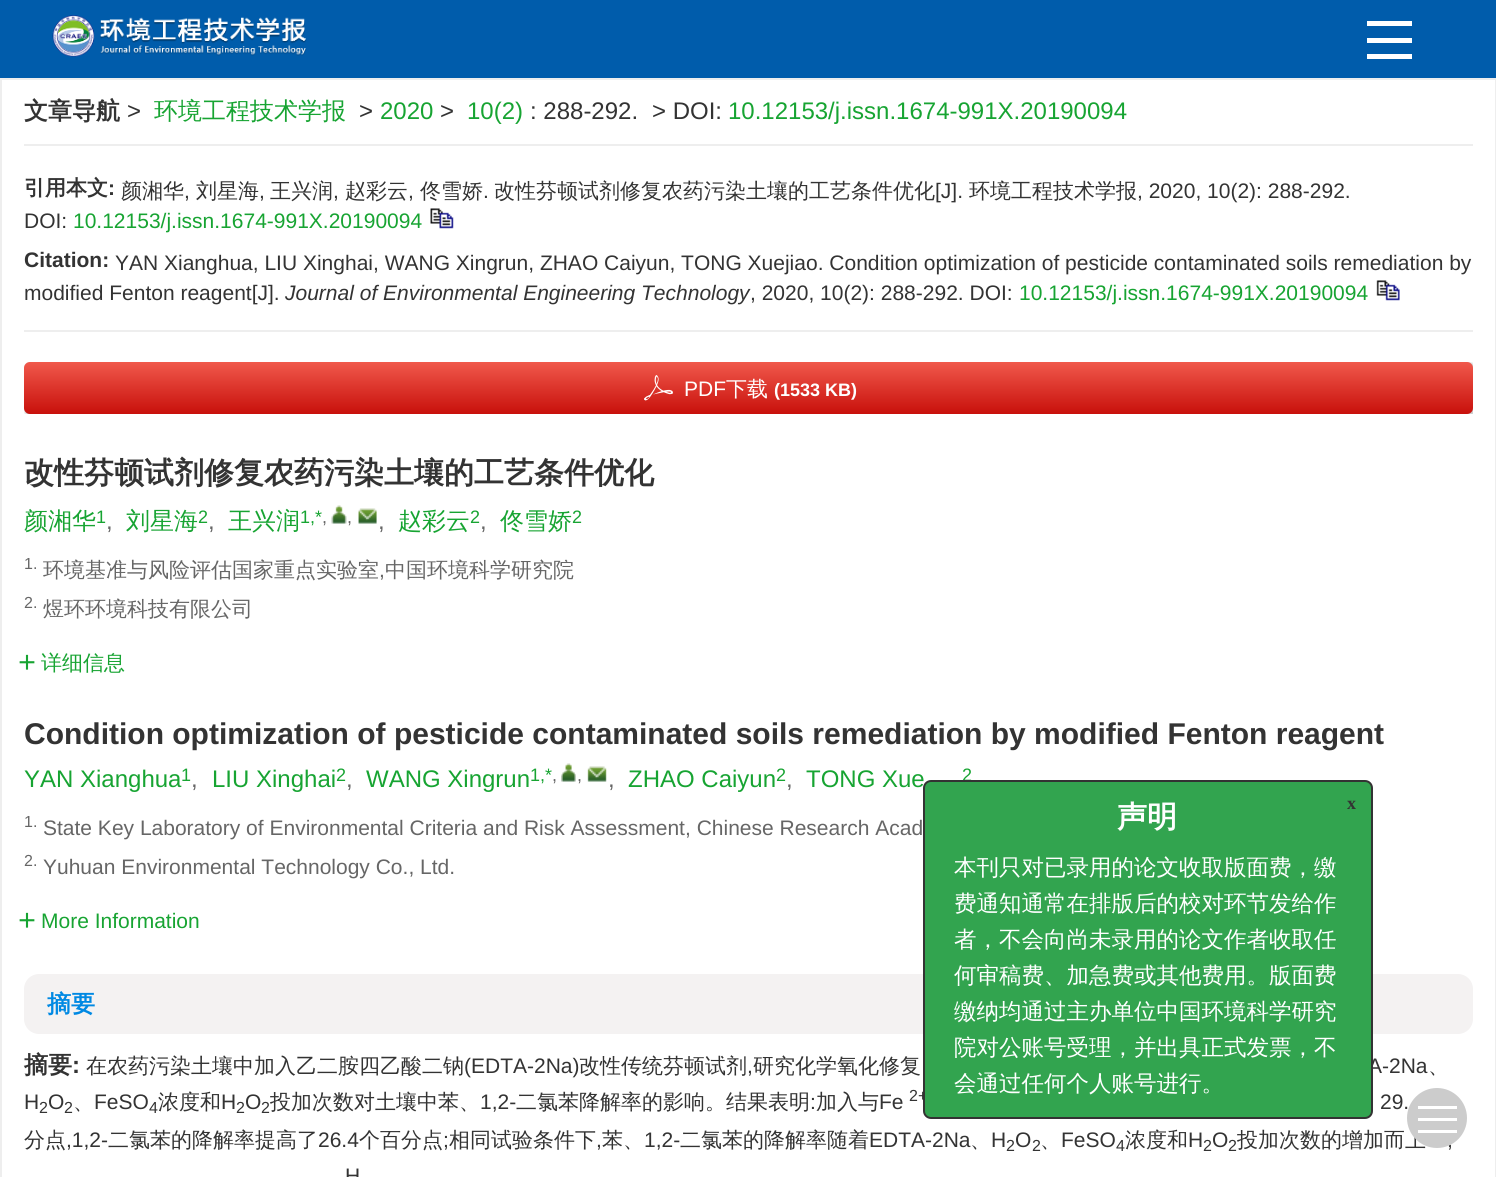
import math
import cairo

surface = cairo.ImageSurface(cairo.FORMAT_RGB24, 1496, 1177)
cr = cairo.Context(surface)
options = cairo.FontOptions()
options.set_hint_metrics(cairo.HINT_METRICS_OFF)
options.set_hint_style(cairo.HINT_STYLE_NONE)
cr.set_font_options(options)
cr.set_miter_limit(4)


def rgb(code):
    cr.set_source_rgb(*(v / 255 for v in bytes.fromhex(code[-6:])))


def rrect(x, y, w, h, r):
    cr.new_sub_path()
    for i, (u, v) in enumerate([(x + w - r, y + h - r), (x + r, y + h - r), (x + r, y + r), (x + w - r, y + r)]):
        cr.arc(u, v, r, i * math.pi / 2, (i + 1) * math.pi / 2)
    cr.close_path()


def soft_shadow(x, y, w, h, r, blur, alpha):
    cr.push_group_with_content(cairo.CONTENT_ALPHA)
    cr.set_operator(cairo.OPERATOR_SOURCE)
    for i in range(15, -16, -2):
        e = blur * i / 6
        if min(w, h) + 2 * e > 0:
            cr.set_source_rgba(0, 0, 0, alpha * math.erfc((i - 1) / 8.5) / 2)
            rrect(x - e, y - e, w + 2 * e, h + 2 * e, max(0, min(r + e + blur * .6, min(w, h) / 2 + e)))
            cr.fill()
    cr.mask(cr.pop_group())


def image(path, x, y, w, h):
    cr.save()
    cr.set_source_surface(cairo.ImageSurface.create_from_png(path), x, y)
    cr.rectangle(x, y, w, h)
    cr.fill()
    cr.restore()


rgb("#ffffff")
cr.paint()
rgb("#005cab")
cr.rectangle(0, 0, 1496, 78)
cr.fill()
image("img/1.png", 52, 15, 255, 42)
for x, y, w, h, color in [
    (1367, 21, 45, 5, "#ffffff"),
    (1367, 38, 45, 5, "#ffffff"),
    (1367, 54, 45, 5, "#ffffff"),
]:
    rgb(color)
    cr.rectangle(x, y, w, h)
    cr.fill()
cr.rectangle(1, 79, 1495, 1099)
rgb("#eeeeee")
cr.stroke()
cr.rectangle(24, 144, 1449, 2)
cr.fill()
cr.rectangle(24, 330, 1449, 2)
cr.fill()
image("img/2.png", 430, 208, 24, 21)
image("img/3.png", 1376, 280, 24, 21)
cr.save()
cr.rectangle(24, 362, 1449, 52)
cr.clip()
rgb("#000000")
soft_shadow(24, 362, 1452, 55, 8, 1, 0.2)
cr.restore()
gradient = cairo.LinearGradient(749, 361, 749, 414)
gradient.add_color_stop_rgba(0, 0.945, 0.353, 0.302, 1)
gradient.add_color_stop_rgba(1, 0.784, 0.063, 0.043, 1)
cr.set_source(gradient)
rrect(24, 362, 1449, 52, 6)
cr.fill()
image("img/4.png", 644, 375, 29, 26)
image("img/5.png", 331, 505, 16, 19)
image("img/6.png", 358, 508, 19, 16)
image("img/7.png", 19, 654, 16, 16)
image("img/8.png", 561, 763, 15, 19)
image("img/9.png", 587, 766, 20, 16)
image("img/7.png", 19, 912, 16, 16)
rgb("#f4f2f2")
rrect(24, 974, 1449, 60, 15)
cr.fill()
cr.select_font_face("WenQuanYi Zen Hei", cairo.FONT_SLANT_NORMAL, cairo.FONT_WEIGHT_BOLD)
cr.set_font_size(24)
rgb("#333333")
cr.move_to(24, 119)
cr.show_text("文章导航")
cr.select_font_face("Liberation Sans")
cr.move_to(127, 119)
cr.show_text(">")
cr.select_font_face("WenQuanYi Zen Hei Medium")
rgb("#17a432")
cr.move_to(154, 119)
cr.show_text("环境工程技术学报")
cr.select_font_face("Liberation Sans")
rgb("#333333")
cr.move_to(359, 119)
cr.show_text(">")
rgb("#17a432")
cr.move_to(380, 119)
cr.show_text("2020")
rgb("#333333")
cr.move_to(440, 119)
cr.show_text(">")
rgb("#17a432")
cr.move_to(467, 119)
cr.show_text("10(2)")
rgb("#333333")
cr.move_to(530, 119)
cr.show_text(": 288-292.")
cr.move_to(652, 119)
cr.show_text("> DOI:")
rgb("#17a432")
cr.move_to(728, 119)
cr.show_text("10.12153/j.issn.1674-991X.20190094")
cr.select_font_face("WenQuanYi Zen Hei", cairo.FONT_SLANT_NORMAL, cairo.FONT_WEIGHT_BOLD)
cr.set_font_size(21)
rgb("#333333")
cr.move_to(24, 195)
cr.show_text("引用本文")
cr.select_font_face("WenQuanYi Zen Hei Medium")
cr.move_to(121, 198)
cr.show_text("颜湘华")
cr.select_font_face("Liberation Sans")
cr.move_to(184, 198)
cr.show_text(",")
cr.select_font_face("WenQuanYi Zen Hei Medium")
cr.move_to(196, 198)
cr.show_text("刘星海")
cr.select_font_face("Liberation Sans")
cr.move_to(259, 198)
cr.show_text(",")
cr.select_font_face("WenQuanYi Zen Hei Medium")
cr.move_to(270, 198)
cr.show_text("王兴润")
cr.select_font_face("Liberation Sans")
cr.move_to(333, 198)
cr.show_text(",")
cr.select_font_face("WenQuanYi Zen Hei Medium")
cr.move_to(345, 198)
cr.show_text("赵彩云")
cr.select_font_face("Liberation Sans")
cr.move_to(408, 198)
cr.show_text(",")
cr.select_font_face("WenQuanYi Zen Hei Medium")
cr.move_to(420, 198)
cr.show_text("佟雪娇")
cr.select_font_face("Liberation Sans")
cr.move_to(483, 198)
cr.show_text(".")
cr.select_font_face("WenQuanYi Zen Hei Medium")
cr.move_to(494, 198)
cr.show_text("改性芬顿试剂修复农药污染土壤的工艺条件优化")
cr.select_font_face("Liberation Sans")
cr.move_to(935, 198)
cr.show_text("[J].")
cr.select_font_face("WenQuanYi Zen Hei Medium")
cr.move_to(969, 198)
cr.show_text("环境工程技术学报")
cr.select_font_face("Liberation Sans")
cr.move_to(1137, 198)
cr.show_text(", 2020, 10(2): 288-292.")
cr.move_to(24, 228)
cr.show_text("DOI:")
rgb("#17a432")
cr.move_to(73, 228)
cr.show_text("10.12153/j.issn.1674-991X.20190094")
cr.select_font_face("Liberation Sans", cairo.FONT_SLANT_NORMAL, cairo.FONT_WEIGHT_BOLD)
rgb("#333333")
cr.move_to(108, 195)
cr.show_text(":")
cr.move_to(24, 267)
cr.show_text("Citation:")
cr.select_font_face("Liberation Sans")
cr.move_to(115, 270)
cr.show_text("YAN Xianghua, LIU Xinghai, WANG Xingrun, ZHAO Caiyun, TONG Xuejiao. Condition optimization of pesticide contaminated soils remediation by")
cr.move_to(24, 300)
cr.show_text("modified Fenton reagent[J].")
cr.select_font_face("Liberation Sans", cairo.FONT_SLANT_ITALIC)
cr.move_to(285, 300)
cr.show_text("Journal of Environmental Engineering Technology")
cr.select_font_face("Liberation Sans")
cr.move_to(750, 300)
cr.show_text(", 2020, 10(2): 288-292. DOI:")
rgb("#17a432")
cr.move_to(1019, 300)
cr.show_text("10.12153/j.issn.1674-991X.20190094")
rgb("#ffffff")
cr.move_to(684, 396)
cr.show_text("PDF")
cr.select_font_face("WenQuanYi Zen Hei Medium")
cr.move_to(726, 396)
cr.show_text("下载")
cr.select_font_face("Liberation Sans", cairo.FONT_SLANT_NORMAL, cairo.FONT_WEIGHT_BOLD)
cr.set_font_size(18)
cr.move_to(774, 396)
cr.show_text("(1533 KB)")
cr.select_font_face("WenQuanYi Zen Hei", cairo.FONT_SLANT_NORMAL, cairo.FONT_WEIGHT_BOLD)
cr.set_font_size(30)
rgb("#333333")
cr.move_to(24, 483)
cr.show_text("改性芬顿试剂修复农药污染土壤的工艺条件优化")
cr.select_font_face("WenQuanYi Zen Hei Medium")
cr.set_font_size(24)
rgb("#17a432")
cr.move_to(24, 529)
cr.show_text("颜湘华")
cr.select_font_face("Liberation Sans")
cr.set_font_size(18)
cr.move_to(96, 523)
cr.show_text("1")
cr.set_font_size(24)
rgb("#666666")
cr.move_to(106, 529)
cr.show_text(",")
cr.select_font_face("WenQuanYi Zen Hei Medium")
rgb("#17a432")
cr.move_to(126, 529)
cr.show_text("刘星海")
cr.select_font_face("Liberation Sans")
cr.set_font_size(18)
cr.move_to(198, 523)
cr.show_text("2")
cr.set_font_size(24)
rgb("#666666")
cr.move_to(208, 529)
cr.show_text(",")
cr.select_font_face("WenQuanYi Zen Hei Medium")
rgb("#17a432")
cr.move_to(228, 529)
cr.show_text("王兴润")
cr.select_font_face("Liberation Sans")
cr.set_font_size(18)
cr.move_to(300, 523)
cr.show_text("1,*")
rgb("#666666")
cr.move_to(322, 523)
cr.show_text(",")
cr.move_to(347, 523)
cr.show_text(",")
cr.set_font_size(24)
cr.move_to(378, 529)
cr.show_text(",")
cr.select_font_face("WenQuanYi Zen Hei Medium")
rgb("#17a432")
cr.move_to(398, 529)
cr.show_text("赵彩云")
cr.select_font_face("Liberation Sans")
cr.set_font_size(18)
cr.move_to(470, 523)
cr.show_text("2")
cr.set_font_size(24)
rgb("#666666")
cr.move_to(480, 529)
cr.show_text(",")
cr.select_font_face("WenQuanYi Zen Hei Medium")
rgb("#17a432")
cr.move_to(500, 529)
cr.show_text("佟雪娇")
cr.select_font_face("Liberation Sans")
cr.set_font_size(18)
cr.move_to(572, 523)
cr.show_text("2")
cr.set_font_size(16)
rgb("#666666")
cr.move_to(24, 569)
cr.show_text("1.")
cr.select_font_face("WenQuanYi Zen Hei Medium")
cr.set_font_size(21)
cr.move_to(43, 577)
cr.show_text("环境基准与风险评估国家重点实验室")
cr.select_font_face("Liberation Sans")
cr.move_to(379, 577)
cr.show_text(",")
cr.select_font_face("WenQuanYi Zen Hei Medium")
cr.move_to(385, 577)
cr.show_text("中国环境科学研究院")
cr.select_font_face("Liberation Sans")
cr.set_font_size(16)
cr.move_to(24, 608)
cr.show_text("2.")
cr.select_font_face("WenQuanYi Zen Hei Medium")
cr.set_font_size(21)
cr.move_to(43, 616)
cr.show_text("煜环环境科技有限公司")
rgb("#17a432")
cr.move_to(41, 670)
cr.show_text("详细信息")
cr.select_font_face("Liberation Sans", cairo.FONT_SLANT_NORMAL, cairo.FONT_WEIGHT_BOLD)
cr.set_font_size(30)
rgb("#333333")
cr.move_to(24, 744)
cr.show_text("Condition optimization of pesticide contaminated soils remediation by modified Fenton reagent")
cr.select_font_face("Liberation Sans")
cr.set_font_size(24)
rgb("#17a432")
cr.move_to(24, 787)
cr.show_text("YAN Xianghua")
cr.set_font_size(18)
cr.move_to(181, 781)
cr.show_text("1")
cr.set_font_size(24)
rgb("#666666")
cr.move_to(191, 787)
cr.show_text(",")
rgb("#17a432")
cr.move_to(212, 787)
cr.show_text("LIU Xinghai")
cr.set_font_size(18)
cr.move_to(336, 781)
cr.show_text("2")
cr.set_font_size(24)
rgb("#666666")
cr.move_to(346, 787)
cr.show_text(",")
rgb("#17a432")
cr.move_to(366, 787)
cr.show_text("WANG Xingrun")
cr.set_font_size(18)
cr.move_to(530, 781)
cr.show_text("1,*")
rgb("#666666")
cr.move_to(552, 781)
cr.show_text(",")
cr.move_to(577, 781)
cr.show_text(",")
cr.set_font_size(24)
cr.move_to(608, 787)
cr.show_text(",")
rgb("#17a432")
cr.move_to(628, 787)
cr.show_text("ZHAO Caiyun")
cr.set_font_size(18)
cr.move_to(776, 781)
cr.show_text("2")
cr.set_font_size(24)
rgb("#666666")
cr.move_to(786, 787)
cr.show_text(",")
rgb("#17a432")
cr.move_to(806, 787)
cr.show_text("TONG Xue")
cr.set_font_size(18)
cr.move_to(962, 781)
cr.show_text("2")
cr.set_font_size(16)
rgb("#666666")
cr.move_to(24, 827)
cr.show_text("1.")
cr.set_font_size(21)
cr.move_to(43, 835)
cr.show_text("State Key Laboratory of Environmental Criteria and Risk Assessment, Chinese Research Acad")
cr.set_font_size(16)
cr.move_to(24, 866)
cr.show_text("2.")
cr.set_font_size(21)
cr.move_to(43, 874)
cr.show_text("Yuhuan Environmental Technology Co., Ltd.")
rgb("#17a432")
cr.move_to(41, 928)
cr.show_text("More Information")
cr.select_font_face("WenQuanYi Zen Hei", cairo.FONT_SLANT_NORMAL, cairo.FONT_WEIGHT_BOLD)
cr.set_font_size(24)
rgb("#0089e3")
cr.move_to(47, 1012)
cr.show_text("摘要")
rgb("#333333")
cr.move_to(24, 1073)
cr.show_text("摘要")
cr.select_font_face("Liberation Sans", cairo.FONT_SLANT_NORMAL, cairo.FONT_WEIGHT_BOLD)
cr.move_to(72, 1073)
cr.show_text(":")
cr.select_font_face("WenQuanYi Zen Hei Medium")
cr.set_font_size(21)
cr.move_to(86, 1073)
cr.show_text("在农药污染土壤中加入乙二胺四乙酸二钠")
cr.select_font_face("Liberation Sans")
cr.move_to(464, 1073)
cr.show_text("(EDTA-2Na)")
cr.select_font_face("WenQuanYi Zen Hei Medium")
cr.move_to(579, 1073)
cr.show_text("改性传统芬顿试剂")
cr.select_font_face("Liberation Sans")
cr.move_to(747, 1073)
cr.show_text(",")
cr.select_font_face("WenQuanYi Zen Hei Medium")
cr.move_to(753, 1073)
cr.show_text("研究化学氧化修复")
cr.select_font_face("Liberation Sans")
cr.move_to(1368, 1073)
cr.show_text("A-2Na")
cr.select_font_face("WenQuanYi Zen Hei Medium")
cr.move_to(1428, 1073)
cr.show_text("、")
cr.select_font_face("Liberation Sans")
cr.move_to(24, 1109)
cr.show_text("H")
cr.set_font_size(16)
cr.move_to(39, 1113)
cr.show_text("2")
cr.set_font_size(21)
cr.move_to(48, 1109)
cr.show_text("O")
cr.set_font_size(16)
cr.move_to(64, 1113)
cr.show_text("2")
cr.select_font_face("WenQuanYi Zen Hei Medium")
cr.set_font_size(21)
cr.move_to(73, 1109)
cr.show_text("、")
cr.select_font_face("Liberation Sans")
cr.move_to(94, 1109)
cr.show_text("FeSO")
cr.set_font_size(16)
cr.move_to(149, 1113)
cr.show_text("4")
cr.select_font_face("WenQuanYi Zen Hei Medium")
cr.set_font_size(21)
cr.move_to(158, 1109)
cr.show_text("浓度和")
cr.select_font_face("Liberation Sans")
cr.move_to(221, 1109)
cr.show_text("H")
cr.set_font_size(16)
cr.move_to(236, 1113)
cr.show_text("2")
cr.set_font_size(21)
cr.move_to(245, 1109)
cr.show_text("O")
cr.set_font_size(16)
cr.move_to(261, 1113)
cr.show_text("2")
cr.select_font_face("WenQuanYi Zen Hei Medium")
cr.set_font_size(21)
cr.move_to(270, 1109)
cr.show_text("投加次数对土壤中苯、")
cr.select_font_face("Liberation Sans")
cr.move_to(480, 1109)
cr.show_text("1,2-")
cr.select_font_face("WenQuanYi Zen Hei Medium")
cr.move_to(516, 1109)
cr.show_text("二氯苯降解率的影响。结果表明")
cr.select_font_face("Liberation Sans")
cr.move_to(810, 1109)
cr.show_text(":")
cr.select_font_face("WenQuanYi Zen Hei Medium")
cr.move_to(816, 1109)
cr.show_text("加入与")
cr.select_font_face("Liberation Sans")
cr.move_to(879, 1109)
cr.show_text("Fe")
cr.set_font_size(16)
cr.move_to(909, 1101)
cr.show_text("2+")
cr.set_font_size(21)
cr.move_to(1380, 1109)
cr.show_text("29.")
cr.select_font_face("WenQuanYi Zen Hei Medium")
cr.move_to(24, 1147)
cr.show_text("分点")
cr.select_font_face("Liberation Sans")
cr.move_to(66, 1147)
cr.show_text(",1,2-")
cr.select_font_face("WenQuanYi Zen Hei Medium")
cr.move_to(108, 1147)
cr.show_text("二氯苯的降解率提高了")
cr.select_font_face("Liberation Sans")
cr.move_to(318, 1147)
cr.show_text("26.4")
cr.select_font_face("WenQuanYi Zen Hei Medium")
cr.move_to(359, 1147)
cr.show_text("个百分点")
cr.select_font_face("Liberation Sans")
cr.move_to(443, 1147)
cr.show_text(";")
cr.select_font_face("WenQuanYi Zen Hei Medium")
cr.move_to(449, 1147)
cr.show_text("相同试验条件下")
cr.select_font_face("Liberation Sans")
cr.move_to(596, 1147)
cr.show_text(",")
cr.select_font_face("WenQuanYi Zen Hei Medium")
cr.move_to(602, 1147)
cr.show_text("苯、")
cr.select_font_face("Liberation Sans")
cr.move_to(644, 1147)
cr.show_text("1,2-")
cr.select_font_face("WenQuanYi Zen Hei Medium")
cr.move_to(680, 1147)
cr.show_text("二氯苯的降解率随着")
cr.select_font_face("Liberation Sans")
cr.move_to(869, 1147)
cr.show_text("EDTA-2Na")
cr.select_font_face("WenQuanYi Zen Hei Medium")
cr.move_to(970, 1147)
cr.show_text("、")
cr.select_font_face("Liberation Sans")
cr.move_to(991, 1147)
cr.show_text("H")
cr.set_font_size(16)
cr.move_to(1006, 1151)
cr.show_text("2")
cr.set_font_size(21)
cr.move_to(1015, 1147)
cr.show_text("O")
cr.set_font_size(16)
cr.move_to(1032, 1151)
cr.show_text("2")
cr.select_font_face("WenQuanYi Zen Hei Medium")
cr.set_font_size(21)
cr.move_to(1040, 1147)
cr.show_text("、")
cr.select_font_face("Liberation Sans")
cr.move_to(1061, 1147)
cr.show_text("FeSO")
cr.set_font_size(16)
cr.move_to(1116, 1151)
cr.show_text("4")
cr.select_font_face("WenQuanYi Zen Hei Medium")
cr.set_font_size(21)
cr.move_to(1125, 1147)
cr.show_text("浓度和")
cr.select_font_face("Liberation Sans")
cr.move_to(1188, 1147)
cr.show_text("H")
cr.set_font_size(16)
cr.move_to(1203, 1151)
cr.show_text("2")
cr.set_font_size(21)
cr.move_to(1212, 1147)
cr.show_text("O")
cr.set_font_size(16)
cr.move_to(1228, 1151)
cr.show_text("2")
cr.select_font_face("WenQuanYi Zen Hei Medium")
cr.set_font_size(21)
cr.move_to(1237, 1147)
cr.show_text("投加次数的增加而上")
cr.select_font_face("Liberation Sans")
cr.move_to(1447, 1147)
cr.show_text(",")
cr.move_to(345, 1183)
cr.show_text("H")
rgb("#cccccc")
cr.new_path()
cr.arc(1437, 1118, 29, 0, 2 * math.pi)
cr.fill_preserve()
cr.stroke()
for x, y, w, h, color in [
    (1418, 1106, 39, 3, "#ffffff"),
    (1418, 1118, 39, 3, "#ffffff"),
    (1418, 1130, 39, 3, "#ffffff"),
]:
    rgb(color)
    cr.rectangle(x, y, w, h)
    cr.fill()
rgb("#32a44f")
rrect(924, 781, 448, 337, 7)
cr.fill_preserve()
rgb("#333333")
cr.stroke()
cr.select_font_face("WenQuanYi Zen Hei", cairo.FONT_SLANT_NORMAL, cairo.FONT_WEIGHT_BOLD)
cr.set_font_size(30)
rgb("#ffffff")
cr.move_to(1117, 827)
cr.show_text("声明")
cr.select_font_face("WenQuanYi Zen Hei Medium")
cr.set_font_size(22.5)
for x, y, s in [
    (954, 875, "本刊只对已录用的论文收取版面费，缴"),
    (954, 911, "费通知通常在排版后的校对环节发给作"),
    (954, 947, "者，不会向尚未录用的论文作者收取任"),
    (954, 983, "何审稿费、加急费或其他费用。版面费"),
    (954, 1019, "缴纳均通过主办单位中国环境科学研究"),
    (954, 1055, "院对公账号受理，并出具正式发票，不"),
    (954, 1091, "会通过任何个人账号进行。"),
]:
    cr.move_to(x, y)
    cr.show_text(s)
cr.select_font_face("Liberation Serif", cairo.FONT_SLANT_NORMAL, cairo.FONT_WEIGHT_BOLD)
cr.set_font_size(18)
rgb("#333333")
cr.move_to(1347, 809)
cr.show_text("x")
surface.write_to_png("page.png")
